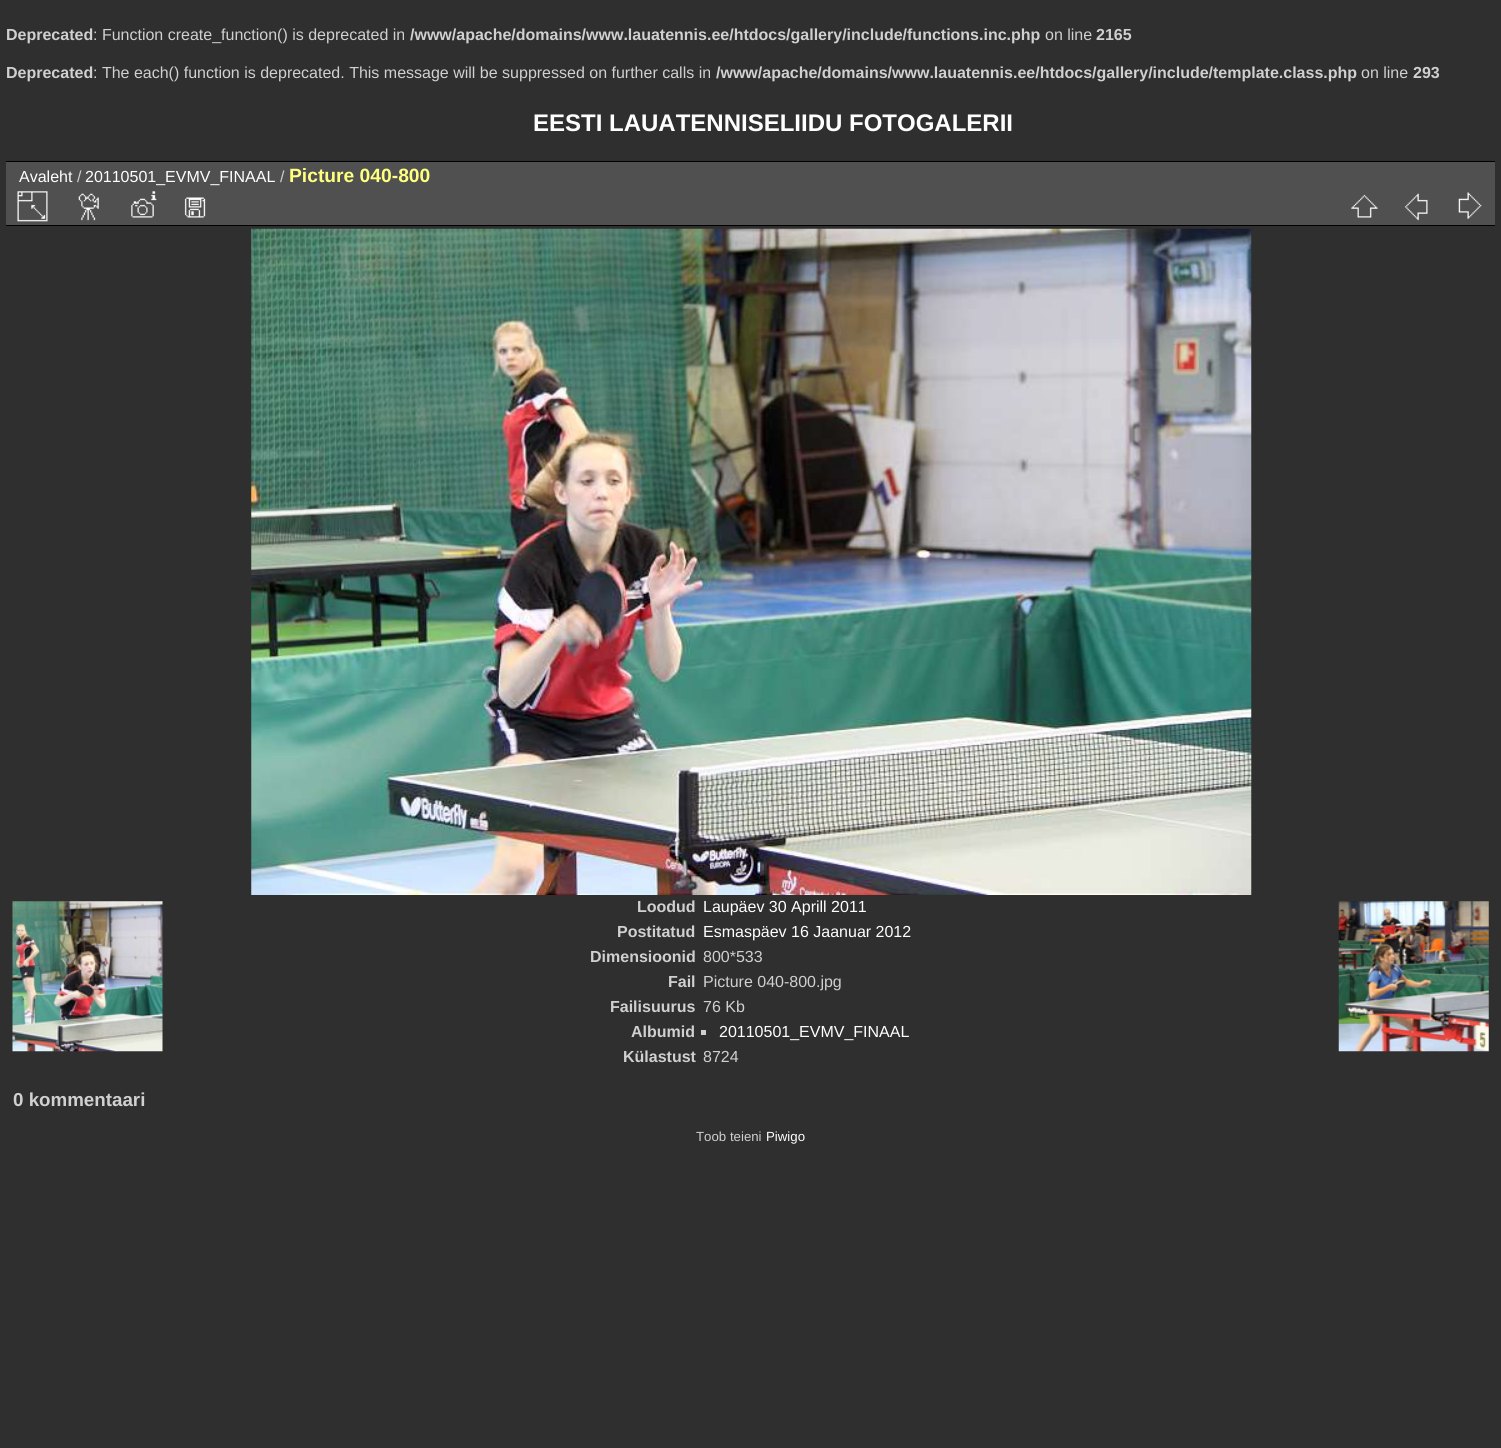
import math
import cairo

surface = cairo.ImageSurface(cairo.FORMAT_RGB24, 1501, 1448)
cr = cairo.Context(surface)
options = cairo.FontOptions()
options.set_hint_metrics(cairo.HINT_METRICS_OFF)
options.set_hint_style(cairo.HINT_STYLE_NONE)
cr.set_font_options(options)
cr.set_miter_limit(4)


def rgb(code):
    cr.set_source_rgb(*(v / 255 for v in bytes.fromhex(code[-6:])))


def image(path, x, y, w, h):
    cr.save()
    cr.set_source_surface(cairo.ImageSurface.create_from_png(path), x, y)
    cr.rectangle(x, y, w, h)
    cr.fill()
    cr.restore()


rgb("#2f2f2f")
cr.paint()
rgb("#505050")
cr.rectangle(6, 162, 1489, 63)
cr.fill()
rgb("#000000")
cr.rectangle(6, 225, 1489, 1)
cr.fill()
image("img/1.png", 17, 191, 31, 31)
image("img/2.png", 78, 193, 21, 28)
image("img/3.png", 131, 191, 26, 27)
image("img/4.png", 184, 197, 22, 21)
image("img/5.png", 1351, 194, 27, 24)
image("img/6.png", 1404, 193, 24, 28)
image("img/7.png", 1458, 192, 24, 27)
cr.rectangle(6, 161, 1489, 1)
cr.fill()
image("img/8.png", 251, 228, 1001, 667)
rgb("#d0d0d0")
cr.rectangle(701, 1030, 5, 5)
cr.fill()
image("img/9.png", 12, 901, 151, 151)
image("img/10.png", 1338, 901, 151, 151)
cr.select_font_face("Liberation Sans", cairo.FONT_SLANT_NORMAL, cairo.FONT_WEIGHT_BOLD)
cr.set_font_size(16)
cr.move_to(6, 40)
cr.show_text("Deprecated")
cr.select_font_face("Liberation Sans")
cr.move_to(93, 40)
cr.show_text(": Function create_function() is deprecated in")
cr.select_font_face("Liberation Sans", cairo.FONT_SLANT_NORMAL, cairo.FONT_WEIGHT_BOLD)
cr.move_to(410, 40)
cr.show_text("/www/apache/domains/www.lauatennis.ee/htdocs/gallery/include/functions.inc.php")
cr.select_font_face("Liberation Sans")
cr.move_to(1045, 40)
cr.show_text("on line")
cr.select_font_face("Liberation Sans", cairo.FONT_SLANT_NORMAL, cairo.FONT_WEIGHT_BOLD)
cr.move_to(1096, 40)
cr.show_text("2165")
cr.move_to(6, 78)
cr.show_text("Deprecated")
cr.select_font_face("Liberation Sans")
cr.move_to(93, 78)
cr.show_text(": The each() function is deprecated. This message will be suppressed on further calls in")
cr.select_font_face("Liberation Sans", cairo.FONT_SLANT_NORMAL, cairo.FONT_WEIGHT_BOLD)
cr.move_to(716, 78)
cr.show_text("/www/apache/domains/www.lauatennis.ee/htdocs/gallery/include/template.class.php")
cr.select_font_face("Liberation Sans")
cr.move_to(1361, 78)
cr.show_text("on line")
cr.select_font_face("Liberation Sans", cairo.FONT_SLANT_NORMAL, cairo.FONT_WEIGHT_BOLD)
cr.move_to(1413, 78)
cr.show_text("293")
cr.set_font_size(24)
rgb("#ffffff")
cr.move_to(533, 131)
cr.show_text("EESTI LAUATENNISELIIDU FOTOGALERII")
cr.select_font_face("Liberation Sans")
cr.set_font_size(16)
cr.move_to(19, 182)
cr.show_text("Avaleht")
rgb("#d0d0d0")
cr.move_to(77, 182)
cr.show_text("/")
rgb("#ffffff")
cr.move_to(85, 182)
cr.show_text("20110501_EVMV_FINAAL")
rgb("#d0d0d0")
cr.move_to(280, 182)
cr.show_text("/")
cr.select_font_face("Liberation Sans", cairo.FONT_SLANT_NORMAL, cairo.FONT_WEIGHT_BOLD)
cr.set_font_size(19.25)
rgb("#ffff80")
cr.move_to(289, 182)
cr.show_text("Picture 040-800")
cr.set_font_size(16)
rgb("#d0d0d0")
cr.move_to(637, 912)
cr.show_text("Loodud")
cr.select_font_face("Liberation Sans")
rgb("#ffffff")
cr.move_to(703, 912)
cr.show_text("Laupäev 30 Aprill 2011")
cr.select_font_face("Liberation Sans", cairo.FONT_SLANT_NORMAL, cairo.FONT_WEIGHT_BOLD)
rgb("#d0d0d0")
cr.move_to(617, 937)
cr.show_text("Postitatud")
cr.select_font_face("Liberation Sans")
rgb("#ffffff")
cr.move_to(703, 937)
cr.show_text("Esmaspäev 16 Jaanuar 2012")
cr.select_font_face("Liberation Sans", cairo.FONT_SLANT_NORMAL, cairo.FONT_WEIGHT_BOLD)
rgb("#d0d0d0")
cr.move_to(590, 962)
cr.show_text("Dimensioonid")
cr.select_font_face("Liberation Sans")
cr.move_to(703, 962)
cr.show_text("800*533")
cr.select_font_face("Liberation Sans", cairo.FONT_SLANT_NORMAL, cairo.FONT_WEIGHT_BOLD)
cr.move_to(668, 987)
cr.show_text("Fail")
cr.select_font_face("Liberation Sans")
cr.move_to(703, 987)
cr.show_text("Picture 040-800.jpg")
cr.select_font_face("Liberation Sans", cairo.FONT_SLANT_NORMAL, cairo.FONT_WEIGHT_BOLD)
cr.move_to(610, 1012)
cr.show_text("Failisuurus")
cr.select_font_face("Liberation Sans")
cr.move_to(703, 1012)
cr.show_text("76 Kb")
cr.select_font_face("Liberation Sans", cairo.FONT_SLANT_NORMAL, cairo.FONT_WEIGHT_BOLD)
cr.move_to(631, 1037)
cr.show_text("Albumid")
cr.select_font_face("Liberation Sans")
rgb("#ffffff")
cr.move_to(719, 1037)
cr.show_text("20110501_EVMV_FINAAL")
cr.select_font_face("Liberation Sans", cairo.FONT_SLANT_NORMAL, cairo.FONT_WEIGHT_BOLD)
rgb("#d0d0d0")
cr.move_to(623, 1062)
cr.show_text("Külastust")
cr.select_font_face("Liberation Sans")
cr.move_to(703, 1062)
cr.show_text("8724")
cr.select_font_face("Liberation Sans", cairo.FONT_SLANT_NORMAL, cairo.FONT_WEIGHT_BOLD)
cr.set_font_size(18.75)
cr.move_to(13, 1106)
cr.show_text("0 kommentaari")
cr.select_font_face("Liberation Sans")
cr.set_font_size(13.25)
cr.move_to(696, 1141)
cr.show_text("Toob teieni")
rgb("#ffffff")
cr.move_to(766, 1141)
cr.show_text("Piwigo")
surface.write_to_png("page.png")
